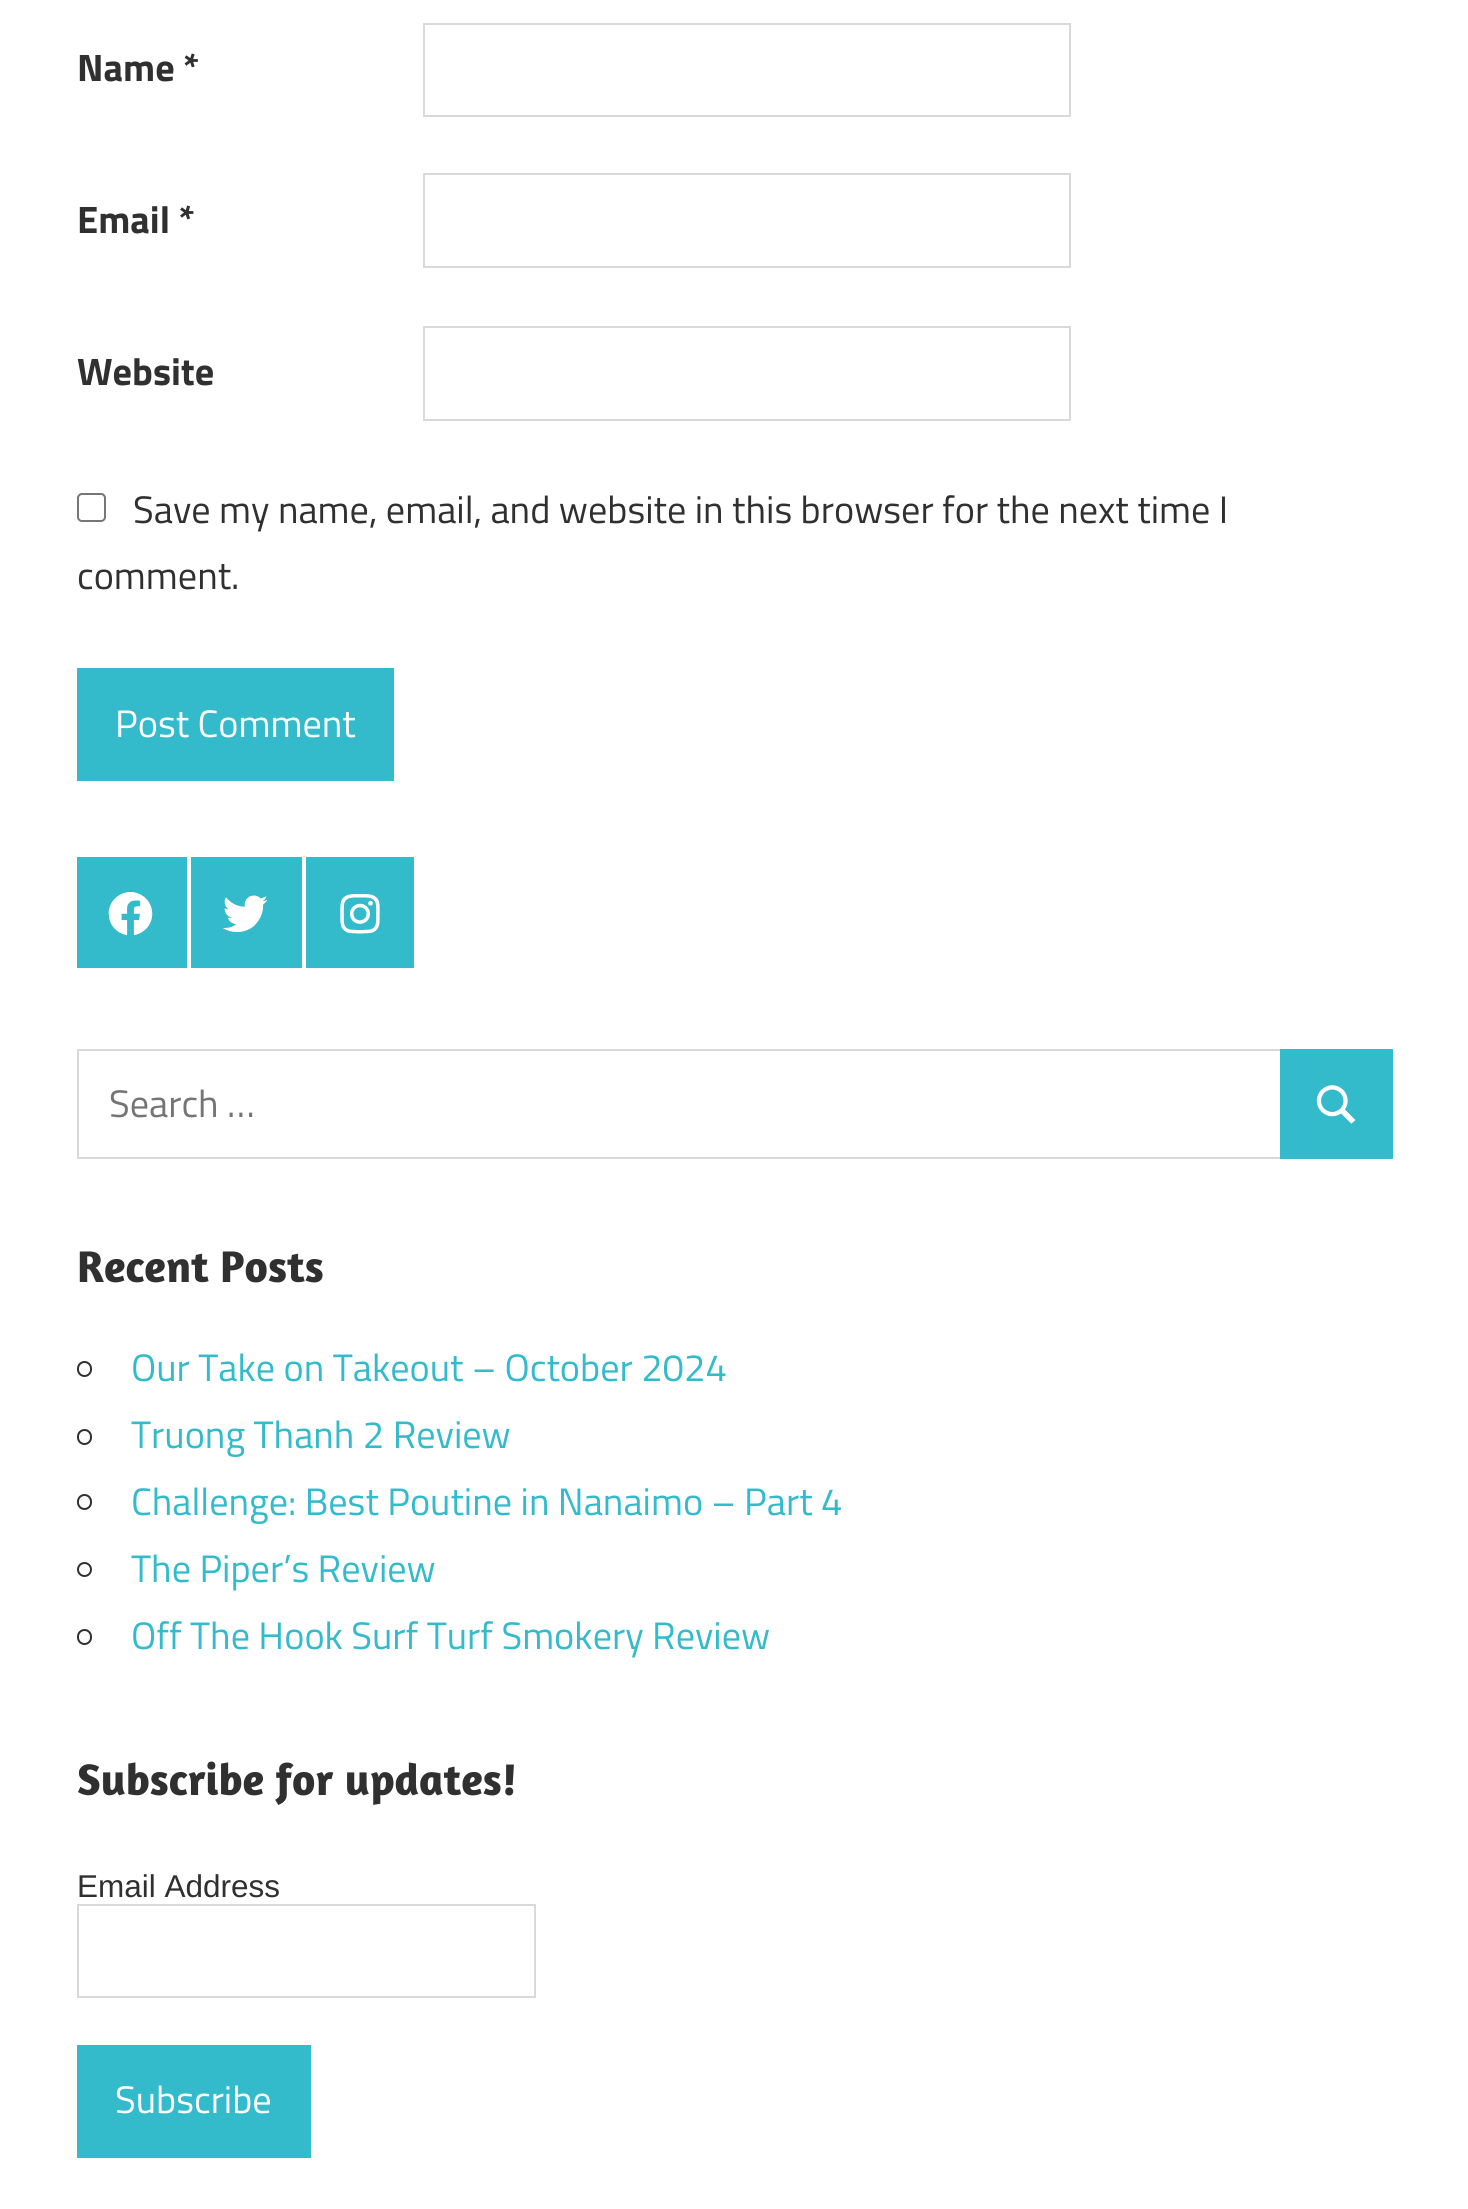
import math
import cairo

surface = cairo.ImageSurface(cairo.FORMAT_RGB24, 1468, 2209)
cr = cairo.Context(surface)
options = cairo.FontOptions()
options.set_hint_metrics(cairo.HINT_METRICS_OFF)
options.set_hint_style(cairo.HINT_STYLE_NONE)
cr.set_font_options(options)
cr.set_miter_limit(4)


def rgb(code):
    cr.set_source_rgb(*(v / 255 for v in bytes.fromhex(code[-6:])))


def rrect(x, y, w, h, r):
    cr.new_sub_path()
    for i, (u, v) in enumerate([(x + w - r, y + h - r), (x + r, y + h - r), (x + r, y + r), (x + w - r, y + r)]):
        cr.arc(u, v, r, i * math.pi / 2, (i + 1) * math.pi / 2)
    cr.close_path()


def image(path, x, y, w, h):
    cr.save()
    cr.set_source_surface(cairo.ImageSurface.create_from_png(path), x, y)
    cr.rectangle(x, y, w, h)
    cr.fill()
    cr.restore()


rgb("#ffffff")
cr.paint()
cr.rectangle(424, 24, 646, 92)
rgb("#d9d9d9")
cr.stroke()
cr.rectangle(424, 174, 646, 93)
cr.stroke()
cr.rectangle(424, 327, 646, 93)
cr.stroke()
rrect(78, 494, 27, 27, 4)
rgb("#767676")
cr.stroke()
rgb("#33bbcc")
cr.rectangle(77, 668, 317, 113)
cr.fill()
cr.rectangle(77, 857, 110, 111)
cr.fill()
image("img/1.png", 108, 892, 45, 44)
cr.rectangle(191, 857, 111, 111)
cr.fill()
image("img/2.png", 223, 895, 45, 37)
cr.rectangle(306, 857, 108, 111)
cr.fill()
image("img/3.png", 340, 894, 40, 40)
cr.rectangle(78, 1050, 1204, 108)
rgb("#d9d9d9")
cr.stroke()
rgb("#33bbcc")
cr.rectangle(1280, 1049, 113, 110)
cr.fill()
image("img/4.png", 1316, 1085, 40, 39)
rrect(78, 1362, 13, 14, 6.5)
rgb("#303030")
cr.stroke()
rrect(78, 1430, 13, 14, 6.5)
cr.stroke()
rrect(78, 1495, 13, 14, 6.5)
cr.stroke()
cr.arc(84.5, 1569.5, 6.5, 0, 2 * math.pi)
cr.stroke()
rrect(78, 1630, 13, 14, 6.5)
cr.stroke()
cr.rectangle(78, 1905, 457, 92)
rgb("#d9d9d9")
cr.stroke()
rgb("#33bbcc")
cr.rectangle(77, 2045, 234, 113)
cr.fill()
cr.select_font_face("Titillium Web", cairo.FONT_SLANT_NORMAL, cairo.FONT_WEIGHT_BOLD)
cr.set_font_size(38.25)
rgb("#303030")
for x, y, s in [
    (77, 81, "Name *"),
    (77, 233, "Email *"),
    (77, 385, "Website"),
]:
    cr.move_to(x, y)
    cr.show_text(s)
cr.select_font_face("Titillium Web")
cr.move_to(133, 523)
cr.show_text("Save my name, email, and website in this browser for the next time I")
cr.move_to(77, 589)
cr.show_text("comment.")
rgb("#ffffff")
cr.move_to(115, 737)
cr.show_text("Post Comment")
rgb("#757575")
cr.move_to(109, 1117)
cr.show_text("Search …")
cr.select_font_face("Amaranth", cairo.FONT_SLANT_NORMAL, cairo.FONT_WEIGHT_BOLD)
cr.set_font_size(45)
rgb("#303030")
cr.move_to(77, 1282)
cr.show_text("Recent Posts")
cr.select_font_face("Titillium Web")
cr.set_font_size(38.25)
rgb("#33bbcc")
for x, y, s in [
    (131, 1381, "Our Take on Takeout – October 2024"),
    (131, 1448, "Truong Thanh 2 Review"),
    (131, 1515, "Challenge: Best Poutine in Nanaimo – Part 4"),
    (131, 1582, "The Piper’s Review"),
    (131, 1649, "Off The Hook Surf Turf Smokery Review"),
]:
    cr.move_to(x, y)
    cr.show_text(s)
cr.select_font_face("Amaranth", cairo.FONT_SLANT_NORMAL, cairo.FONT_WEIGHT_BOLD)
cr.set_font_size(45)
rgb("#303030")
cr.move_to(77, 1795)
cr.show_text("Subscribe for updates!")
cr.select_font_face("Liberation Sans")
cr.set_font_size(31.5)
cr.move_to(77, 1897)
cr.show_text("Email Address")
cr.select_font_face("Titillium Web")
cr.set_font_size(38.25)
rgb("#ffffff")
cr.move_to(115, 2113)
cr.show_text("Subscribe")
surface.write_to_png("page.png")
